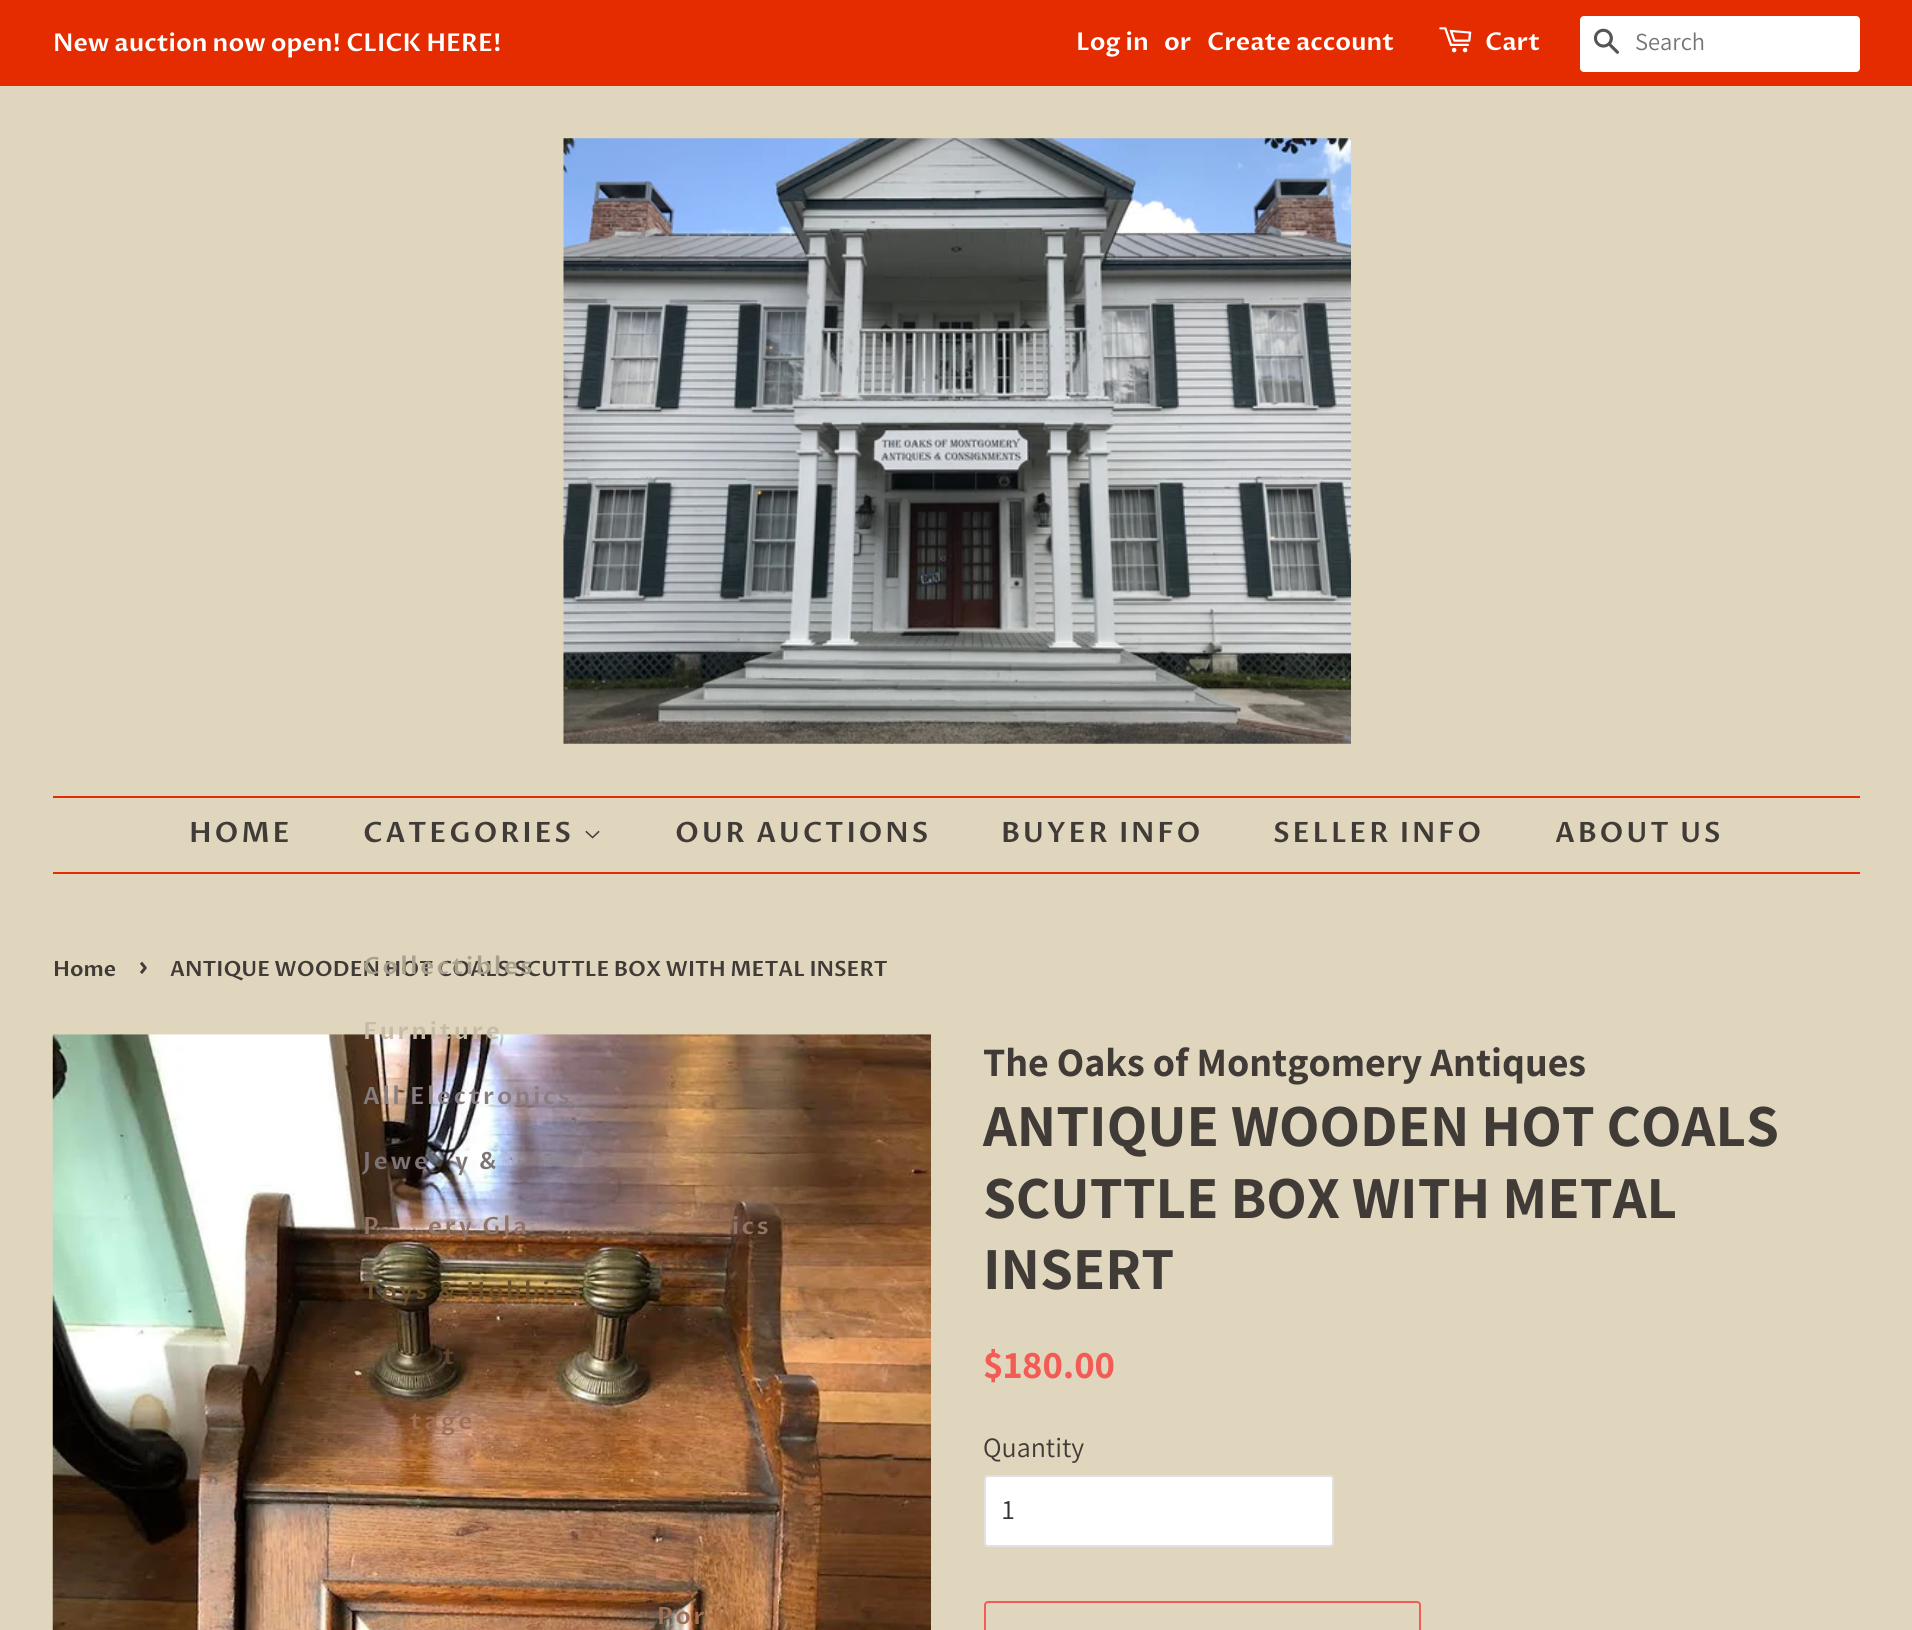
import math
import cairo

surface = cairo.ImageSurface(cairo.FORMAT_RGB24, 1912, 1630)
cr = cairo.Context(surface)
options = cairo.FontOptions()
options.set_hint_metrics(cairo.HINT_METRICS_OFF)
options.set_hint_style(cairo.HINT_STYLE_NONE)
cr.set_font_options(options)
cr.set_miter_limit(4)


def rgb(code):
    cr.set_source_rgb(*(v / 255 for v in bytes.fromhex(code[-6:])))


def tracked(x, y, s, letter, word):
    cr.move_to(x, y)
    for ch in s:
        cr.show_text(ch)
        cr.rel_move_to(letter + word * (ch == ' '), 0)


def rrect(x, y, w, h, r):
    cr.new_sub_path()
    for i, (u, v) in enumerate([(x + w - r, y + h - r), (x + r, y + h - r), (x + r, y + r), (x + w - r, y + r)]):
        cr.arc(u, v, r, i * math.pi / 2, (i + 1) * math.pi / 2)
    cr.close_path()


def image(path, x, y, w, h):
    cr.save()
    cr.set_source_surface(cairo.ImageSurface.create_from_png(path), x, y)
    cr.rectangle(x, y, w, h)
    cr.fill()
    cr.restore()


rgb("#e0d6bd")
cr.paint()
rgb("#e42c00")
cr.rectangle(0, 0, 1912, 86)
cr.fill()
image("img/1.png", 1439, 27, 33, 26)
rgb("#ffffff")
rrect(1580, 16, 280, 56, 4)
cr.fill()
image("img/2.png", 1593, 28, 27, 26)
image("img/3.png", 563, 138, 788, 606)
rgb("#e42c00")
cr.rectangle(53, 796, 1807, 2)
cr.fill()
cr.rectangle(53, 872, 1807, 2)
cr.fill()
image("img/4.png", 585, 830, 15, 9)
image("img/5.png", 52, 1034, 879, 596)
rgb("#ffffff")
rrect(984, 1475, 350, 72, 4)
cr.fill()
rrect(985, 1476, 348, 70, 3)
cr.set_source_rgba(0.251, 0.231, 0.216, 0.15)
cr.stroke()
rrect(985, 1602, 435, 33, 3)
rgb("#f25c54")
cr.stroke()
cr.select_font_face("Proza Libre SemiBold")
cr.set_font_size(24.5)
rgb("#ffffff")
for x, y, s in [
    (53, 51, "New auction now open! CLICK HERE!"),
    (1076, 50, "Log in"),
    (1164, 50, "or"),
    (1207, 50, "Create account"),
    (1485, 50, "Cart"),
]:
    cr.move_to(x, y)
    cr.show_text(s)
cr.select_font_face("Assistant")
rgb("#757575")
cr.move_to(1635, 50)
cr.show_text("Search")
cr.select_font_face("Proza Libre SemiBold")
cr.set_font_size(28)
rgb("#403b37")
tracked(189, 842, "HOME", 2.75, 0)
tracked(363, 842, "CATEGORIES", 2.75, 0)
cr.set_font_size(23.75)
rgb("#c7bba8")
tracked(363, 1039, "Furniture", 2.75, 0)
rgb("#887d81")
tracked(363, 1104, "All Electronics", 2.75, 0)
rgb("#7e7476")
tracked(363, 1169, "Jewe", 2.75, 0)
tracked(455, 1169, "y &", 2.75, 0)
rgb("#927567")
for x, y, s in [
    (363, 1234, "P"),
    (428, 1234, "ery Gla"),
    (732, 1234, "ics"),
]:
    tracked(x, y, s, 2.75, 0)
rgb("#6d512c")
tracked(363, 1299, "Toys & Hobbies", 2.75, 0)
rgb("#5f452d")
tracked(443, 1364, "t", 2.75, 0)
rgb("#a07054")
tracked(410, 1429, "tage", 2.75, 0)
tracked(657, 1624, "Por", 2.75, 0)
cr.set_font_size(28)
rgb("#403b37")
for x, y, s in [
    (675, 842, "OUR AUCTIONS"),
    (1001, 842, "BUYER INFO"),
    (1273, 842, "SELLER INFO"),
    (1555, 842, "ABOUT US"),
]:
    tracked(x, y, s, 2.75, 0)
cr.set_font_size(21)
cr.move_to(53, 976)
cr.show_text("Home")
cr.set_font_size(29)
cr.move_to(138, 976)
cr.show_text("›")
cr.set_font_size(21)
cr.move_to(170, 976)
cr.show_text("ANTIQUE WOODEN HOT COALS SCUTTLE BOX WITH METAL INSERT")
cr.set_font_size(23.75)
rgb("#a8a08e")
tracked(363, 974, "Collectibles", 2.75, 0)
cr.select_font_face("Assistant", cairo.FONT_SLANT_NORMAL, cairo.FONT_WEIGHT_BOLD)
cr.set_font_size(40.25)
rgb("#403b37")
cr.move_to(983, 1076)
cr.show_text("The Oaks of Montgomery Antiques")
cr.set_font_size(59.5)
for x, y, s in [
    (983, 1146, "ANTIQUE WOODEN HOT COALS"),
    (983, 1218, "SCUTTLE BOX WITH METAL"),
    (983, 1289, "INSERT"),
]:
    cr.move_to(x, y)
    cr.show_text(s)
cr.set_font_size(39)
rgb("#f25c54")
cr.move_to(983, 1378)
cr.show_text("$180.00")
cr.select_font_face("Assistant")
cr.set_font_size(28)
rgb("#403b37")
cr.move_to(983, 1457)
cr.show_text("Quantity")
rgb("#333333")
cr.move_to(1002, 1519)
cr.show_text("1")
surface.write_to_png("page.png")
